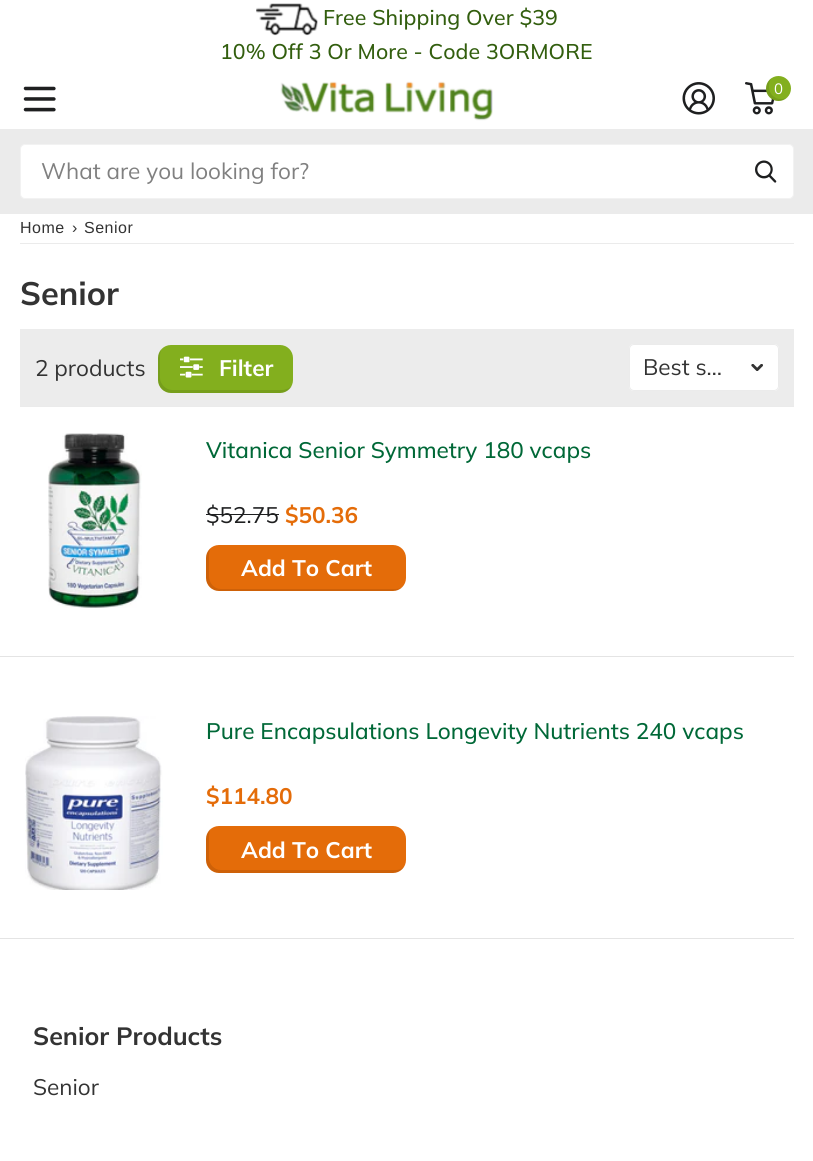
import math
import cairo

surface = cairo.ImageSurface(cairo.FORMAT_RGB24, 813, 1161)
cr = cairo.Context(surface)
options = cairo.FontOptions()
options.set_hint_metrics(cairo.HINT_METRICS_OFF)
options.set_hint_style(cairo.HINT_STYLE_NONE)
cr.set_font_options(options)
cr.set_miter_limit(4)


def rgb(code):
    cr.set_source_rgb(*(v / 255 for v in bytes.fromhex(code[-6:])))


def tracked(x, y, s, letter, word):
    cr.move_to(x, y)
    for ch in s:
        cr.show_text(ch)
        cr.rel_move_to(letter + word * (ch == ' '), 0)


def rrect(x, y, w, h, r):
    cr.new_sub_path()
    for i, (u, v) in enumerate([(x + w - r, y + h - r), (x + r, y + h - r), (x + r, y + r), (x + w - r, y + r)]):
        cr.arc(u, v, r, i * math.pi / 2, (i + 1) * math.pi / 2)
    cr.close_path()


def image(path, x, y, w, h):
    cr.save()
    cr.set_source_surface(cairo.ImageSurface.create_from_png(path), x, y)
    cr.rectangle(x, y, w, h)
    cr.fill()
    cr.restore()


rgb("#ffffff")
cr.paint()
image("img/1.png", 256, 3, 62, 33)
image("img/2.png", 23, 86, 33, 26)
image("img/3.png", 280, 81, 213, 40)
image("img/4.png", 682, 82, 33, 33)
image("img/5.png", 745, 82, 30, 33)
rgb("#83af1e")
cr.arc(778.5, 88.5, 12.5, 0, 2 * math.pi)
cr.fill()
cr.set_source_rgba(0, 0, 0, 0.1)
cr.new_path()
cr.move_to(787, 98)
cr.curve_to(785, 98.5, 783, 99, 781, 99)
cr.curve_to(769, 99, 766, 84.5, 772, 77.5)
cr.curve_to(770, 79, 768, 81, 767, 83.5)
cr.curve_to(762, 96, 777, 106.5, 787, 98)
cr.close_path()
cr.fill()
rgb("#ebebeb")
cr.rectangle(0, 129, 813, 85)
cr.fill()
rgb("#ffffff")
rrect(20.5, 144.5, 773, 54, 4.5)
cr.fill_preserve()
rgb("#f2f2f2")
cr.set_line_width(1)
cr.stroke()
image("img/6.png", 755, 160, 22, 23)
for x, y, w, h, color in [
    (20, 243, 774, 1, "#ebebeb"),
    (20, 329, 774, 77, "#ececec"),
    (20, 406, 774, 1, "#ebebeb"),
]:
    rgb(color)
    cr.rectangle(x, y, w, h)
    cr.fill()
rgb("#83af1e")
rrect(158, 345, 135, 48, 13)
cr.fill()
cr.set_source_rgba(0, 0, 0, 0.1)
cr.new_path()
cr.move_to(161, 349)
cr.curve_to(159, 352, 158, 355, 158, 358)
cr.line_to(158, 380)
cr.curve_to(158, 387, 164, 393, 171, 393)
cr.line_to(280, 393)
cr.curve_to(285, 393, 290, 390, 292, 386)
cr.curve_to(289, 388, 286, 390, 282, 390)
cr.line_to(172, 390)
cr.curve_to(166, 390, 160, 384, 160, 378)
cr.line_to(160, 355)
cr.curve_to(160, 353, 161, 351, 161, 349)
cr.close_path()
cr.fill()
image("img/7.png", 180, 356, 23, 22)
rgb("#ffffff")
rrect(629, 344, 150, 47, 5)
cr.fill()
image("img/8.png", 751, 364, 12, 7)
rrect(629.5, 344.5, 149, 46, 4.5)
rgb("#ebebeb")
cr.stroke()
rgb("#e4e4e4")
cr.rectangle(0, 656, 794, 1)
cr.fill()
image("img/9.png", 48, 433, 94, 175)
rgb("#1e1f20")
cr.rectangle(206, 514, 73, 1)
cr.fill()
rgb("#e46c09")
rrect(206, 545, 200, 46, 13)
cr.fill()
cr.set_source_rgba(0, 0, 0, 0.1)
cr.new_path()
cr.move_to(211, 548)
cr.curve_to(208, 550, 206, 554, 206, 558)
cr.line_to(206, 578)
cr.curve_to(206, 585, 212, 591, 219, 591)
cr.line_to(393, 591)
cr.curve_to(396, 591, 399, 590, 402, 588)
cr.curve_to(400, 588, 398, 589, 396, 589)
cr.line_to(221, 589)
cr.curve_to(214, 589, 209, 583, 209, 576)
cr.line_to(209, 555)
cr.curve_to(209, 552, 210, 550, 211, 548)
cr.close_path()
cr.fill()
rgb("#e4e4e4")
cr.rectangle(0, 938, 794, 1)
cr.fill()
image("img/10.png", 25, 716, 138, 174)
rgb("#e46c09")
rrect(206, 826, 200, 47, 13)
cr.fill()
cr.set_source_rgba(0, 0, 0, 0.1)
cr.new_path()
cr.move_to(211, 828)
cr.curve_to(208, 831, 206, 835, 206, 839)
cr.line_to(206, 860)
cr.curve_to(206, 867, 212, 873, 219, 873)
cr.line_to(393, 873)
cr.curve_to(397, 873, 401, 871, 404, 867)
cr.curve_to(401, 869, 399, 870, 396, 870)
cr.line_to(221, 870)
cr.curve_to(214, 870, 209, 864, 209, 858)
cr.line_to(209, 836)
cr.curve_to(209, 833, 210, 830, 211, 828)
cr.close_path()
cr.fill()
cr.select_font_face("Mulish Medium")
cr.set_font_size(21.25)
rgb("#325e0e")
tracked(323, 25, "Free Shipping Over $39", 0.1, 0)
tracked(220, 59, "10% Off 3 Or More - Code 3ORMORE", 0.1, 0)
cr.select_font_face("Mulish")
cr.set_font_size(15)
rgb("#ffffff")
cr.move_to(774, 94)
cr.show_text("0")
cr.set_font_size(22.5)
rgb("#808080")
cr.move_to(41, 179)
cr.show_text("What are you looking for?")
cr.select_font_face("Liberation Sans")
cr.set_font_size(16)
rgb("#333333")
for x, y, s in [
    (20, 233, "Home"),
    (72, 233, "›"),
    (84, 233, "Senior"),
]:
    tracked(x, y, s, 0.5, 0)
cr.select_font_face("Mulish", cairo.FONT_SLANT_NORMAL, cairo.FONT_WEIGHT_BOLD)
cr.set_font_size(32.5)
cr.move_to(20, 305)
cr.show_text("Senior")
cr.select_font_face("Mulish")
cr.set_font_size(22.5)
cr.move_to(35, 376)
cr.show_text("2 products")
cr.select_font_face("Mulish", cairo.FONT_SLANT_NORMAL, cairo.FONT_WEIGHT_BOLD)
rgb("#ffffff")
cr.move_to(219, 376)
cr.show_text("Filter")
cr.select_font_face("Mulish")
rgb("#333333")
cr.move_to(643, 375)
cr.show_text("Best s…")
cr.select_font_face("Mulish Medium")
rgb("#006837")
cr.move_to(206, 458)
cr.show_text("Vitanica Senior Symmetry 180 vcaps")
cr.select_font_face("Mulish")
rgb("#1e1f20")
cr.move_to(206, 523)
cr.show_text("$52.75")
cr.select_font_face("Mulish", cairo.FONT_SLANT_NORMAL, cairo.FONT_WEIGHT_BOLD)
rgb("#e46c09")
cr.move_to(285, 523)
cr.show_text("$50.36")
rgb("#ffffff")
cr.move_to(241, 576)
cr.show_text("Add To Cart")
cr.select_font_face("Mulish Medium")
rgb("#006837")
cr.move_to(206, 739)
cr.show_text("Pure Encapsulations Longevity Nutrients 240 vcaps")
cr.select_font_face("Mulish", cairo.FONT_SLANT_NORMAL, cairo.FONT_WEIGHT_BOLD)
rgb("#e46c09")
cr.move_to(206, 804)
cr.show_text("$114.80")
rgb("#ffffff")
cr.move_to(241, 858)
cr.show_text("Add To Cart")
cr.set_font_size(25)
rgb("#333333")
cr.move_to(33, 1045)
cr.show_text("Senior Products")
cr.select_font_face("Mulish")
cr.set_font_size(22.5)
cr.move_to(33, 1095)
cr.show_text("Senior")
surface.write_to_png("page.png")
